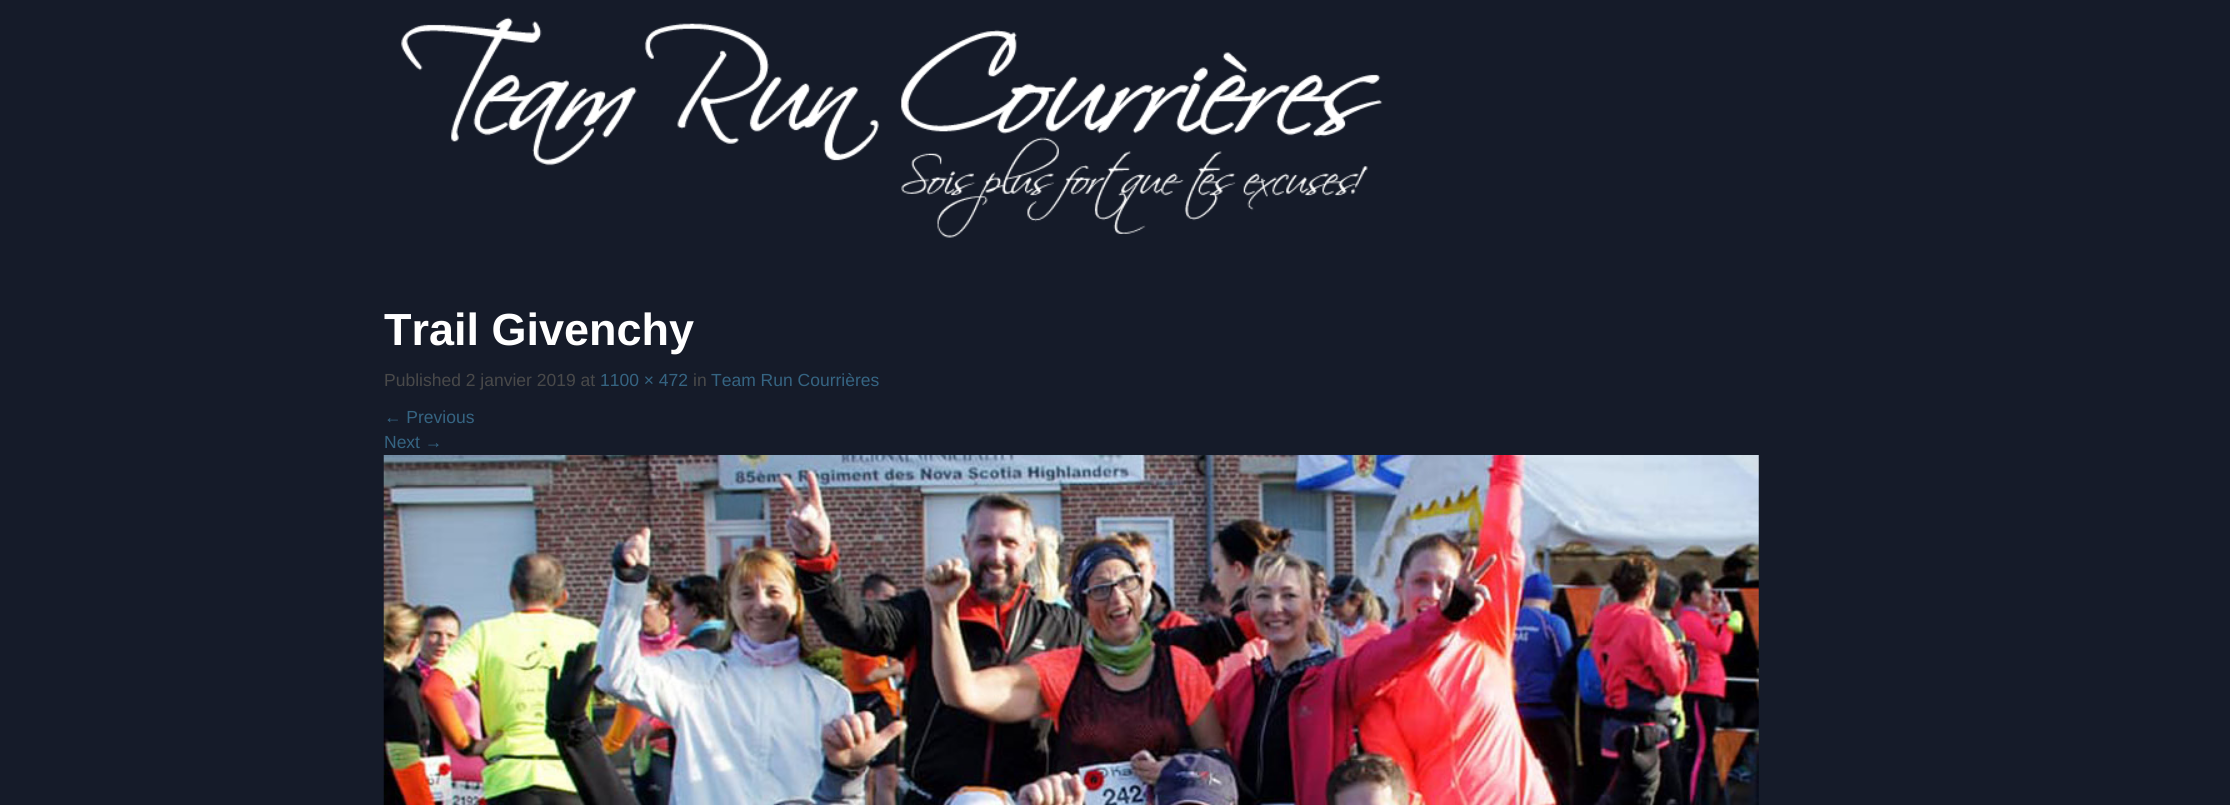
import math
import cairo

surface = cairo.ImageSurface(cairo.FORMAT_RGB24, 2230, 805)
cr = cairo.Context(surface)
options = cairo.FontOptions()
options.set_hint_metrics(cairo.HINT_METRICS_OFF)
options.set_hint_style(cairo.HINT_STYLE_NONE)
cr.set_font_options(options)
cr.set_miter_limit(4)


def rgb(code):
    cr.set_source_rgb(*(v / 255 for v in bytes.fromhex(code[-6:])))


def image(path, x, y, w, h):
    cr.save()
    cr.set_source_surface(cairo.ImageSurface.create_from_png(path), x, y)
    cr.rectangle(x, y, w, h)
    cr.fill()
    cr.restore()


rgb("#151b29")
cr.paint()
image("img/1.png", 401, 17, 982, 221)
image("img/2.png", 383, 455, 1376, 350)
cr.select_font_face("Liberation Sans", cairo.FONT_SLANT_NORMAL, cairo.FONT_WEIGHT_BOLD)
cr.set_font_size(45)
rgb("#ffffff")
cr.move_to(384, 345)
cr.show_text("Trail Givenchy")
cr.select_font_face("Liberation Sans")
cr.set_font_size(17.5)
rgb("#494949")
cr.move_to(384, 386)
cr.show_text("Published 2 janvier 2019 at")
rgb("#356482")
cr.move_to(600, 386)
cr.show_text("1100 × 472")
rgb("#494949")
cr.move_to(693, 386)
cr.show_text("in")
rgb("#356482")
for x, y, s in [
    (711, 386, "Team Run Courrières"),
    (384, 423, "← Previous"),
    (384, 448, "Next →"),
]:
    cr.move_to(x, y)
    cr.show_text(s)
surface.write_to_png("page.png")
